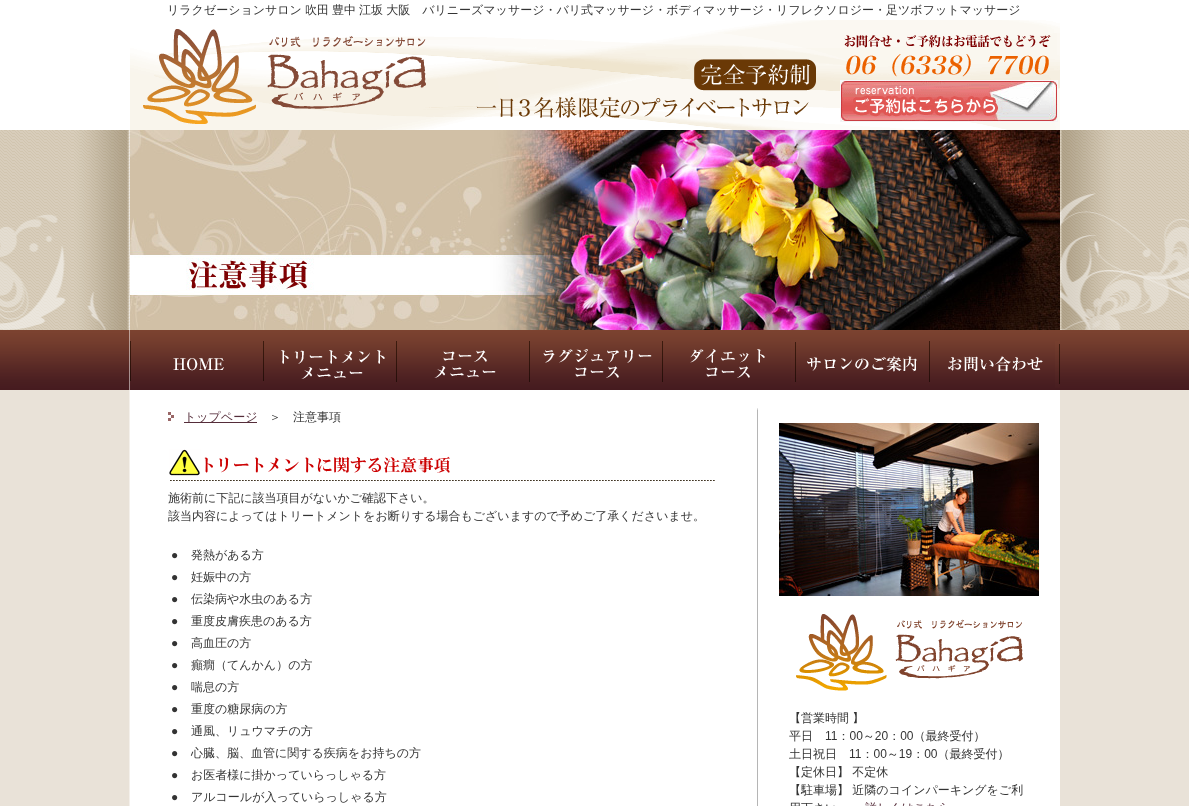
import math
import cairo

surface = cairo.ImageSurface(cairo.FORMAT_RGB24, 1189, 806)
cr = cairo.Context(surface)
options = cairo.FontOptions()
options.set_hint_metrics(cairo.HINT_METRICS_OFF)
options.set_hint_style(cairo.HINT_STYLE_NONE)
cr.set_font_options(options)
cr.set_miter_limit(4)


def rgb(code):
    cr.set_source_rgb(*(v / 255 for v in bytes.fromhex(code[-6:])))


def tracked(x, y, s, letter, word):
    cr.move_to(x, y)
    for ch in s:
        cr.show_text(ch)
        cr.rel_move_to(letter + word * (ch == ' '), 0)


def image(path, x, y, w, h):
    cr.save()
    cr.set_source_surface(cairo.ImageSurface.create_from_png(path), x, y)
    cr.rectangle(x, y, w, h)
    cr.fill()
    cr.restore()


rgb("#ffffff")
cr.paint()
image("img/1.png", 0, 0, 1189, 806)
rgb("#ffffff")
cr.rectangle(1059, 130, 1, 676)
cr.fill()
image("img/2.png", 130, 29, 307, 101)
image("img/3.png", 437, 20, 404, 110)
image("img/4.png", 841, 20, 219, 110)
image("img/5.png", 130, 130, 930, 200)
image("img/6.png", 130, 330, 133, 60)
image("img/7.png", 263, 330, 133, 60)
image("img/8.png", 396, 330, 133, 60)
image("img/9.png", 529, 330, 133, 60)
image("img/10.png", 662, 330, 133, 60)
image("img/11.png", 795, 330, 134, 60)
image("img/12.png", 929, 330, 131, 60)
image("img/13.png", 168, 412, 6, 9)
rgb("#552d3a")
cr.rectangle(184, 422, 73, 1)
cr.fill()
image("img/14.png", 169, 449, 546, 32)
image("img/15.png", 757, 408, 1, 398)
image("img/16.png", 779, 423, 260, 383)
cr.select_font_face("WenQuanYi Zen Hei Medium")
cr.set_font_size(12)
rgb("#333333")
tracked(167, 14, "リラクゼーションサロン 吹田 豊中 江坂 大阪　バリニーズマッサージ・バリ式マッサージ・ボディマッサージ・リフレクソロジー・足ツボフットマッサージ", 0, -0.5)
rgb("#552d3a")
cr.move_to(184, 421)
cr.show_text("トップページ")
rgb("#333333")
for x, y, s in [
    (269, 421, "＞　注意事項"),
    (168, 502, "施術前に下記に該当項目がないかご確認下さい。"),
    (168, 520, "該当内容によってはトリートメントをお断りする場合もございますので予めご了承くださいませ。"),
]:
    cr.move_to(x, y)
    cr.show_text(s)
cr.select_font_face("Liberation Sans")
cr.move_to(171, 559)
cr.show_text("●")
cr.select_font_face("WenQuanYi Zen Hei Medium")
cr.move_to(191, 559)
cr.show_text("発熱がある方")
cr.select_font_face("Liberation Sans")
cr.move_to(171, 581)
cr.show_text("●")
cr.select_font_face("WenQuanYi Zen Hei Medium")
cr.move_to(191, 581)
cr.show_text("妊娠中の方")
cr.select_font_face("Liberation Sans")
cr.move_to(171, 603)
cr.show_text("●")
cr.select_font_face("WenQuanYi Zen Hei Medium")
cr.move_to(191, 603)
cr.show_text("伝染病や水虫のある方")
cr.select_font_face("Liberation Sans")
cr.move_to(171, 625)
cr.show_text("●")
cr.select_font_face("WenQuanYi Zen Hei Medium")
cr.move_to(191, 625)
cr.show_text("重度皮膚疾患のある方")
cr.select_font_face("Liberation Sans")
cr.move_to(171, 647)
cr.show_text("●")
cr.select_font_face("WenQuanYi Zen Hei Medium")
cr.move_to(191, 647)
cr.show_text("高血圧の方")
cr.select_font_face("Liberation Sans")
cr.move_to(171, 669)
cr.show_text("●")
cr.select_font_face("WenQuanYi Zen Hei Medium")
cr.move_to(191, 669)
cr.show_text("癲癇（てんかん）の方")
cr.select_font_face("Liberation Sans")
cr.move_to(171, 691)
cr.show_text("●")
cr.select_font_face("WenQuanYi Zen Hei Medium")
cr.move_to(191, 691)
cr.show_text("喘息の方")
cr.select_font_face("Liberation Sans")
cr.move_to(171, 713)
cr.show_text("●")
cr.select_font_face("WenQuanYi Zen Hei Medium")
cr.move_to(191, 713)
cr.show_text("重度の糖尿病の方")
cr.select_font_face("Liberation Sans")
cr.move_to(171, 735)
cr.show_text("●")
cr.select_font_face("WenQuanYi Zen Hei Medium")
cr.move_to(191, 735)
cr.show_text("通風、リュウマチの方")
cr.select_font_face("Liberation Sans")
cr.move_to(171, 757)
cr.show_text("●")
cr.select_font_face("WenQuanYi Zen Hei Medium")
cr.move_to(191, 757)
cr.show_text("心臓、脳、血管に関する疾病をお持ちの方")
cr.select_font_face("Liberation Sans")
cr.move_to(171, 779)
cr.show_text("●")
cr.select_font_face("WenQuanYi Zen Hei Medium")
cr.move_to(191, 779)
cr.show_text("お医者様に掛かっていらっしゃる方")
cr.select_font_face("Liberation Sans")
cr.move_to(171, 801)
cr.show_text("●")
cr.select_font_face("WenQuanYi Zen Hei Medium")
cr.move_to(191, 801)
cr.show_text("アルコールが入っていらっしゃる方")
surface.write_to_png("page.png")
